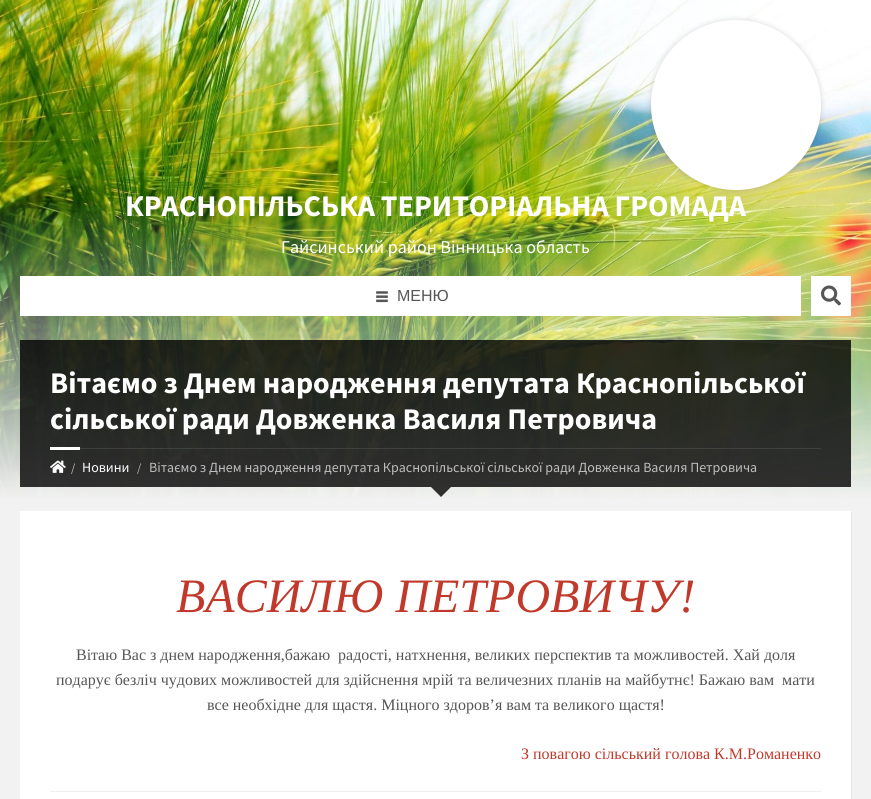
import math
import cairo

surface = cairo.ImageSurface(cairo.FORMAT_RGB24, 871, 799)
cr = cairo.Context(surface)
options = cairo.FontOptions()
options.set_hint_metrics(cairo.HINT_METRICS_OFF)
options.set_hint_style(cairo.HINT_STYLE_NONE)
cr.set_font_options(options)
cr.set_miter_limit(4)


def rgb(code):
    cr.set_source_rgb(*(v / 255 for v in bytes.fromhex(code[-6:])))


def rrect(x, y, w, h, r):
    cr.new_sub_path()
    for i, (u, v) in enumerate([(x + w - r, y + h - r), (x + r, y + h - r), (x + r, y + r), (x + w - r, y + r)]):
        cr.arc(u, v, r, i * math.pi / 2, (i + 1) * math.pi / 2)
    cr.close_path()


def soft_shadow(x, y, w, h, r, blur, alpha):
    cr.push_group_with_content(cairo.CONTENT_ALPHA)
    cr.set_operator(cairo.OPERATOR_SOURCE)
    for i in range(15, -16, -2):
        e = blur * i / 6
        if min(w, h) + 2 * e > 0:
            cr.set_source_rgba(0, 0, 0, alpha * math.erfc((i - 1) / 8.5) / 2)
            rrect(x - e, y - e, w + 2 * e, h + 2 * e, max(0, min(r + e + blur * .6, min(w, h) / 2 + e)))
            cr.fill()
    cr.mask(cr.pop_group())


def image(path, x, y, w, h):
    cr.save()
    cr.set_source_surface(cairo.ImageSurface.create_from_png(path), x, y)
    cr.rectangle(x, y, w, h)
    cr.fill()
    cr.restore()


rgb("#f2f2f2")
cr.paint()
image("img/1.png", 0, 0, 871, 500)
rgb("#000000")
soft_shadow(651, 20, 170, 170, 85, 3, 0.15)
rgb("#ffffff")
cr.arc(736, 105, 84, 0, 2 * math.pi)
cr.fill_preserve()
cr.stroke()
cr.rectangle(20, 276, 781, 40)
cr.fill()
image("img/2.png", 376, 291, 12, 12)
cr.rectangle(811, 276, 40, 40)
cr.fill()
image("img/3.png", 821, 285, 20, 21)
cr.set_source_rgba(0, 0, 0, 0.8)
cr.rectangle(20, 340, 831, 147)
cr.fill()
cr.set_source_rgba(1, 1, 1, 0.1)
cr.rectangle(80, 448, 741, 1)
cr.fill()
rgb("#ffffff")
cr.rectangle(50, 447, 30, 3)
cr.fill()
image("img/4.png", 50, 460, 16, 13)
cr.set_source_rgba(0, 0, 0, 0.8)
cr.new_path()
cr.move_to(431, 487)
cr.line_to(451, 487)
cr.line_to(441, 497)
cr.close_path()
cr.fill()
rgb("#e6e6e6")
cr.new_path()
cr.move_to(21, 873)
cr.line_to(21, 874)
cr.line_to(852, 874)
cr.line_to(852, 512)
cr.line_to(851, 512)
cr.line_to(851, 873)
cr.close_path()
cr.fill()
rgb("#ffffff")
cr.rectangle(20, 511, 831, 288)
cr.fill()
rgb("#f0f0f0")
cr.rectangle(50, 791, 771, 1)
cr.fill()
cr.select_font_face("Source Sans Pro", cairo.FONT_SLANT_NORMAL, cairo.FONT_WEIGHT_BOLD)
cr.set_font_size(30)
rgb("#ffffff")
cr.move_to(125, 216)
cr.show_text("КРАСНОПІЛЬСЬКА ТЕРИТОРІАЛЬНА ГРОМАДА")
cr.select_font_face("Source Sans Pro")
cr.set_font_size(18)
cr.move_to(281, 253)
cr.show_text("Гайсинський район Вінницька область")
cr.select_font_face("Liberation Sans")
cr.set_font_size(16)
rgb("#565656")
cr.move_to(397, 301)
cr.show_text("МЕНЮ")
cr.select_font_face("Source Sans Pro", cairo.FONT_SLANT_NORMAL, cairo.FONT_WEIGHT_BOLD)
cr.set_font_size(30)
rgb("#ffffff")
cr.move_to(50, 393)
cr.show_text("Вітаємо з Днем народження депутата Краснопільської")
cr.move_to(50, 429)
cr.show_text("сільської ради Довженка Василя Петровича")
cr.select_font_face("Source Sans Pro")
cr.set_font_size(12)
rgb("#bebebe")
cr.move_to(71, 472)
cr.show_text("/")
cr.set_font_size(14)
rgb("#ffffff")
cr.move_to(82, 472)
cr.show_text("Новини")
cr.set_font_size(12)
rgb("#bebebe")
cr.move_to(137, 472)
cr.show_text("/")
cr.set_font_size(14)
cr.move_to(149, 472)
cr.show_text("Вітаємо з Днем народження депутата Краснопільської сільської ради Довженка Василя Петровича")
cr.select_font_face("Liberation Serif", cairo.FONT_SLANT_ITALIC)
cr.set_font_size(48)
rgb("#c0392b")
cr.move_to(176, 612)
cr.show_text("ВАСИЛЮ ПЕТРОВИЧУ!")
cr.select_font_face("Liberation Serif")
cr.set_font_size(16)
rgb("#565656")
for x, y, s in [
    (76, 660, "Вітаю Вас з днем народження,бажаю  радості, натхнення, великих перспектив та можливостей. Хай доля"),
    (56, 685, "подарує безліч чудових можливостей для здійснення мрій та величезних планів на майбутнє! Бажаю вам  мати"),
    (207, 710, "все необхідне для щастя. Міцного здоров’я вам та великого щастя!"),
]:
    cr.move_to(x, y)
    cr.show_text(s)
rgb("#c0392b")
cr.move_to(521, 759)
cr.show_text("З повагою сільський голова К.М.Романенко")
surface.write_to_png("page.png")
